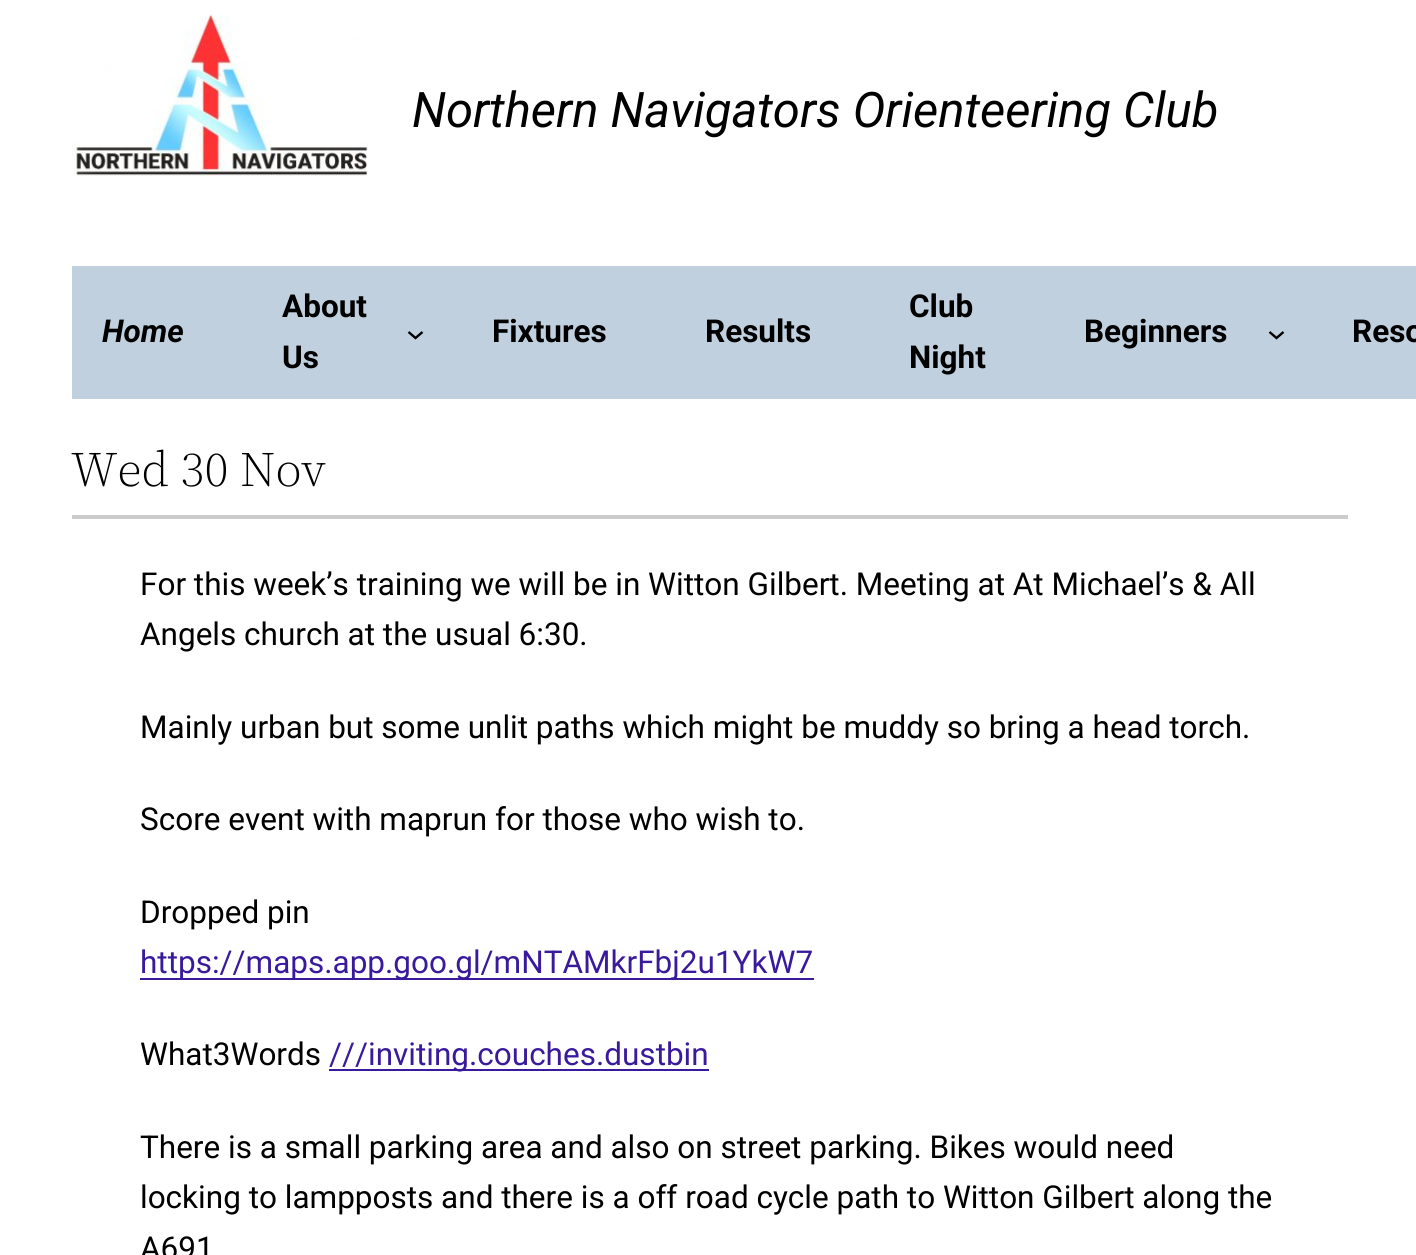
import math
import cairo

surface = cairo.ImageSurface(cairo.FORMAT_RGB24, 1416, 1255)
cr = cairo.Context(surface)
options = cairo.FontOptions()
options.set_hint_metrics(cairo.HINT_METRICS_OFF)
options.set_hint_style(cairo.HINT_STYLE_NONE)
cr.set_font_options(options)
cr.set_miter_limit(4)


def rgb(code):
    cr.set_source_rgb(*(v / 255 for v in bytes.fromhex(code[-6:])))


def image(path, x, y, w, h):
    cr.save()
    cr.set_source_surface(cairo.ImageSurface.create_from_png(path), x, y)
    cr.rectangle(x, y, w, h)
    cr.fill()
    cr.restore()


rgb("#ffffff")
cr.paint()
image("img/1.png", 72, 14, 296, 162)
rgb("#c1d0de")
cr.rectangle(72, 266, 1344, 133)
cr.fill()
cr.new_path()
cr.move_to(408.5, 332)
cr.line_to(415.5, 338)
cr.line_to(422.5, 332)
rgb("#000000")
cr.set_line_width(2.4)
cr.stroke()
cr.new_path()
cr.move_to(1269.5, 332)
cr.line_to(1276.5, 338)
cr.line_to(1283.5, 332)
cr.stroke()
for x, y, w, h, color in [
    (72, 515, 1276, 4, "#cccccc"),
    (140, 978, 674, 2, "#391a9c"),
    (329, 1069, 380, 2, "#391a9c"),
]:
    rgb(color)
    cr.rectangle(x, y, w, h)
    cr.fill()
cr.select_font_face("Roboto", cairo.FONT_SLANT_ITALIC)
cr.set_font_size(49)
rgb("#000000")
cr.move_to(412, 127)
cr.show_text("Northern Navigators Orienteering Club")
cr.select_font_face("Roboto", cairo.FONT_SLANT_ITALIC, cairo.FONT_WEIGHT_BOLD)
cr.set_font_size(31.5)
cr.move_to(102, 342)
cr.show_text("Home")
cr.select_font_face("Roboto", cairo.FONT_SLANT_NORMAL, cairo.FONT_WEIGHT_BOLD)
for x, y, s in [
    (282, 317, "About"),
    (282, 368, "Us"),
    (492, 342, "Fixtures"),
    (705, 342, "Results"),
    (909, 317, "Club"),
    (909, 368, "Night"),
    (1084, 342, "Beginners"),
    (1352, 342, "Reso"),
]:
    cr.move_to(x, y)
    cr.show_text(s)
cr.select_font_face("Source Serif 4 Light")
cr.set_font_size(49)
cr.move_to(71, 486)
cr.show_text("Wed 30 Nov")
cr.select_font_face("Roboto")
cr.set_font_size(31.5)
for x, y, s in [
    (140, 595, "For this week’s training we will be in Witton Gilbert. Meeting at At Michael’s & All"),
    (140, 645, "Angels church at the usual 6:30."),
    (140, 738, "Mainly urban but some unlit paths which might be muddy so bring a head torch."),
    (140, 830, "Score event with maprun for those who wish to."),
    (140, 923, "Dropped pin"),
]:
    cr.move_to(x, y)
    cr.show_text(s)
rgb("#391a9c")
cr.move_to(140, 973)
cr.show_text("https://maps.app.goo.gl/mNTAMkrFbj2u1YkW7")
rgb("#000000")
cr.move_to(140, 1065)
cr.show_text("What3Words")
rgb("#391a9c")
cr.move_to(329, 1065)
cr.show_text("///inviting.couches.dustbin")
rgb("#000000")
for x, y, s in [
    (140, 1158, "There is a small parking area and also on street parking. Bikes would need"),
    (140, 1208, "locking to lampposts and there is a off road cycle path to Witton Gilbert along the"),
    (140, 1259, "A691"),
]:
    cr.move_to(x, y)
    cr.show_text(s)
surface.write_to_png("page.png")
